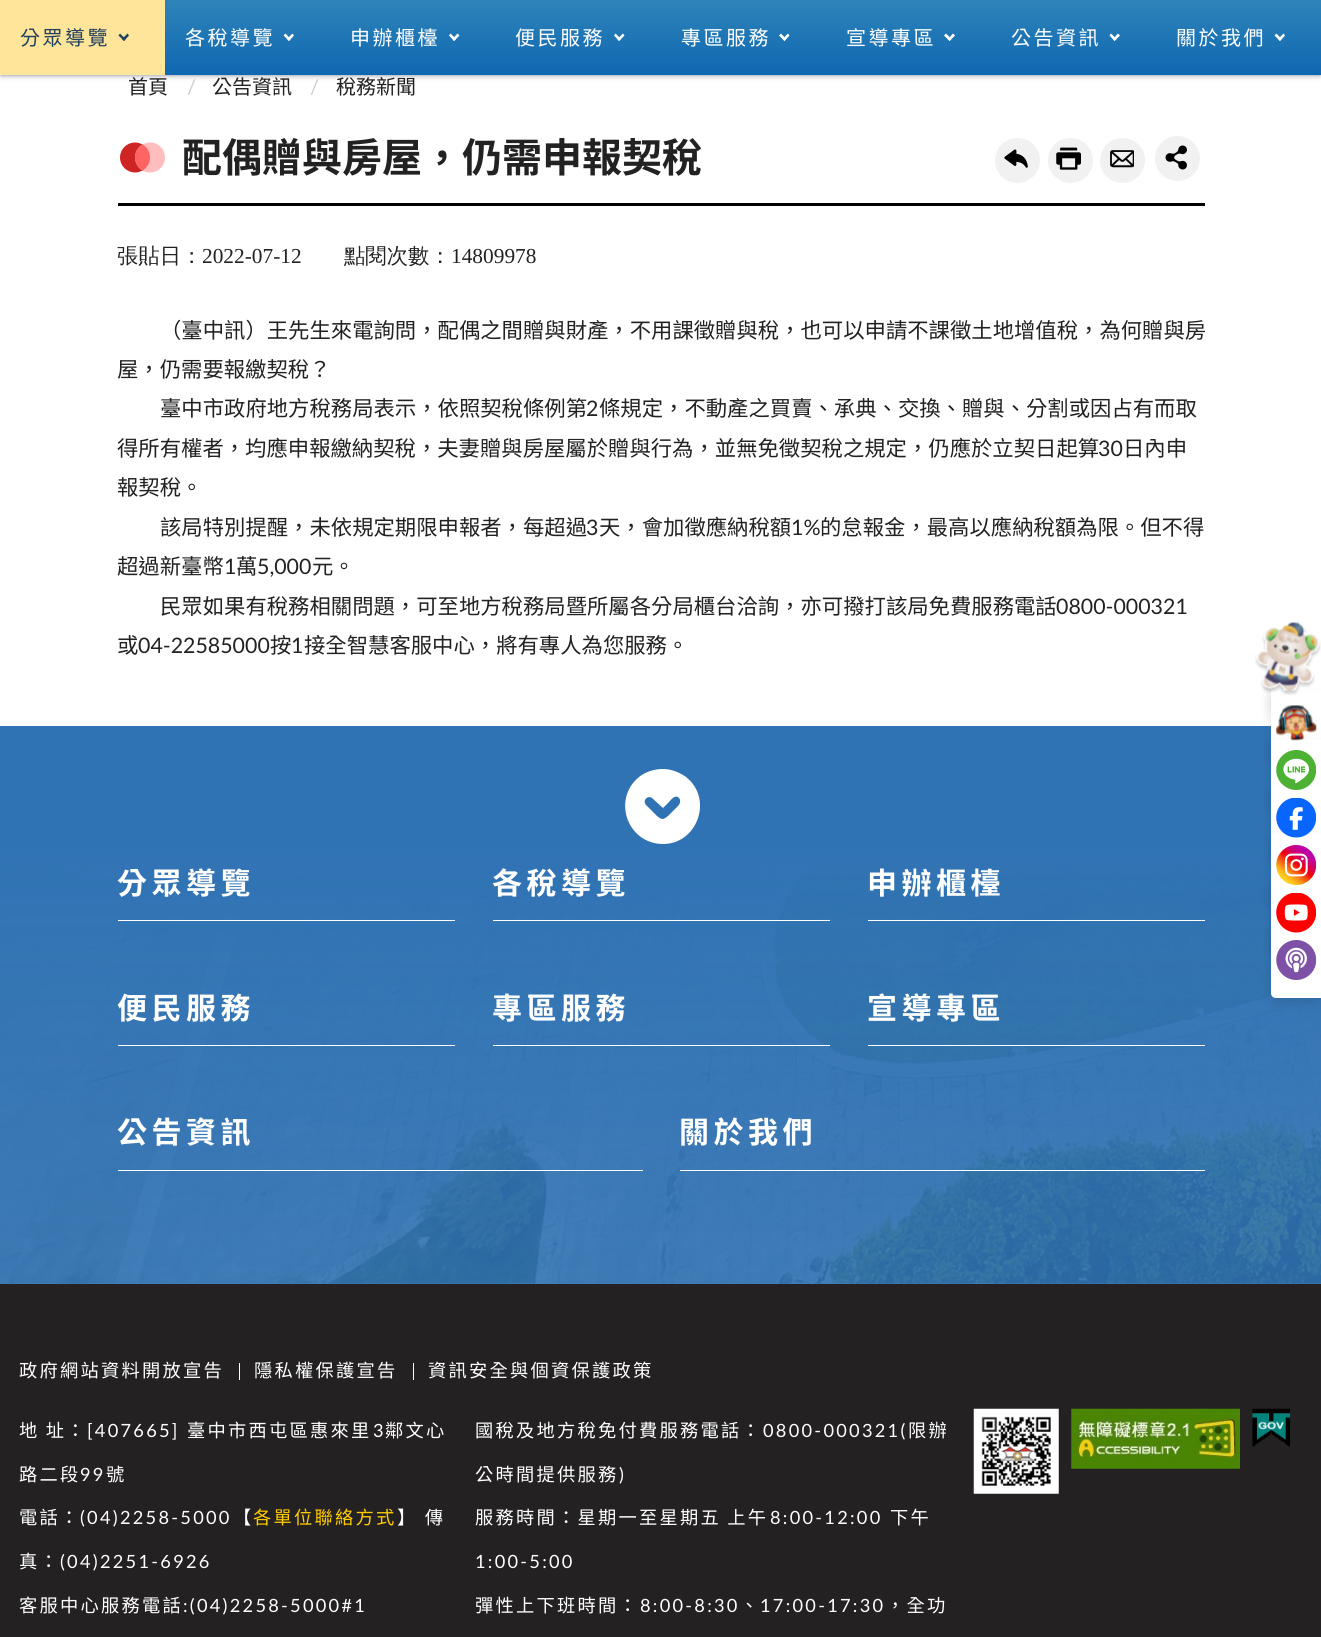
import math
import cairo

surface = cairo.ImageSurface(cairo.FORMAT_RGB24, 1321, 1637)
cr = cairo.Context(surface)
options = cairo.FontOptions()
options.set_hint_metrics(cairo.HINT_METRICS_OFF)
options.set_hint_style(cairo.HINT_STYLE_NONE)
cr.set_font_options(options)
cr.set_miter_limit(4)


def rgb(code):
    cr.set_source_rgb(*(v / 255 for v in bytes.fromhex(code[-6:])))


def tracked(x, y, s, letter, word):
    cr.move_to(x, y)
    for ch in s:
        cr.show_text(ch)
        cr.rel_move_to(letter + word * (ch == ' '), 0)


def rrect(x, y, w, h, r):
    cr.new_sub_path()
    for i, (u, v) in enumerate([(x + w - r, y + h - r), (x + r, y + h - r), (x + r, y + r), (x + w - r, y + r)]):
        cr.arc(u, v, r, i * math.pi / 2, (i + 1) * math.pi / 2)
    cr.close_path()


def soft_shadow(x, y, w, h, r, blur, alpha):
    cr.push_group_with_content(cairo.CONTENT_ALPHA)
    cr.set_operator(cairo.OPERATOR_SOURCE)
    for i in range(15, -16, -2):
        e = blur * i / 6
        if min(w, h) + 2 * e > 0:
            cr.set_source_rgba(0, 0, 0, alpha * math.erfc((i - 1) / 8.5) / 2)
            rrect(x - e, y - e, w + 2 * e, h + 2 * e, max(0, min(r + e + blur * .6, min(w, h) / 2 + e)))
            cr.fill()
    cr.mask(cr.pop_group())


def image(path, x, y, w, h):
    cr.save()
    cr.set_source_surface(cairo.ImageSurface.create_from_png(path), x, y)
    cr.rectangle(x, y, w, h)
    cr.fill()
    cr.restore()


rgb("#ffffff")
cr.paint()
rgb("#000000")
soft_shadow(1, 3, 1319, 72, 0, 2, 0.3)
rgb("#32325d")
soft_shadow(1, 4, 1319, 72, 0, 3, 0.25)
gradient = cairo.LinearGradient(661, 0, 661, 75)
gradient.add_color_stop_rgba(0, 0.18, 0.518, 0.725, 1)
gradient.add_color_stop_rgba(1, 0.059, 0.404, 0.694, 1)
cr.set_source(gradient)
cr.rectangle(165, 0, 1156, 75)
cr.fill()
rgb("#ffe599")
cr.rectangle(0, 0, 165, 75)
cr.fill()
rgb("#213f5e")
cr.new_path()
cr.move_to(129, 35.5)
cr.line_to(124, 41)
cr.line_to(122, 39)
cr.line_to(127.5, 33.5)
cr.close_path()
cr.fill()
cr.new_path()
cr.move_to(125.5, 39)
cr.line_to(124, 41)
cr.line_to(118.5, 35.5)
cr.line_to(120, 33.5)
cr.close_path()
cr.fill()
rgb("#ffffff")
cr.new_path()
cr.move_to(294, 35.5)
cr.line_to(289, 41)
cr.line_to(287, 39)
cr.line_to(292.5, 33.5)
cr.close_path()
cr.fill()
cr.new_path()
cr.move_to(290.5, 39)
cr.line_to(289, 41)
cr.line_to(283.5, 35.5)
cr.line_to(285.5, 33.5)
cr.close_path()
cr.fill()
cr.new_path()
cr.move_to(459.5, 35.5)
cr.line_to(454, 41)
cr.line_to(452.5, 39)
cr.line_to(457.5, 33.5)
cr.close_path()
cr.fill()
cr.new_path()
cr.move_to(456, 39)
cr.line_to(454, 41)
cr.line_to(449, 35.5)
cr.line_to(450.5, 33.5)
cr.close_path()
cr.fill()
cr.new_path()
cr.move_to(624.5, 35.5)
cr.line_to(619, 41)
cr.line_to(617.5, 39)
cr.line_to(623, 33.5)
cr.close_path()
cr.fill()
cr.new_path()
cr.move_to(621, 39)
cr.line_to(619, 41)
cr.line_to(614, 35.5)
cr.line_to(615.5, 33.5)
cr.close_path()
cr.fill()
cr.new_path()
cr.move_to(789.5, 35.5)
cr.line_to(784.5, 41)
cr.line_to(782.5, 39)
cr.line_to(788, 33.5)
cr.close_path()
cr.fill()
cr.new_path()
cr.move_to(786, 39)
cr.line_to(784.5, 41)
cr.line_to(779, 35.5)
cr.line_to(781, 33.5)
cr.close_path()
cr.fill()
cr.new_path()
cr.move_to(955, 35.5)
cr.line_to(949.5, 41)
cr.line_to(948, 39)
cr.line_to(953, 33.5)
cr.close_path()
cr.fill()
cr.new_path()
cr.move_to(951.5, 39)
cr.line_to(949.5, 41)
cr.line_to(944, 35.5)
cr.line_to(946, 33.5)
cr.close_path()
cr.fill()
cr.new_path()
cr.move_to(1120, 35.5)
cr.line_to(1114.5, 41)
cr.line_to(1113, 39)
cr.line_to(1118, 33.5)
cr.close_path()
cr.fill()
cr.new_path()
cr.move_to(1116.5, 39)
cr.line_to(1114.5, 41)
cr.line_to(1109.5, 35.5)
cr.line_to(1111, 33.5)
cr.close_path()
cr.fill()
cr.new_path()
cr.move_to(1285, 35.5)
cr.line_to(1280, 41)
cr.line_to(1278, 39)
cr.line_to(1283.5, 33.5)
cr.close_path()
cr.fill()
cr.new_path()
cr.move_to(1281.5, 39)
cr.line_to(1280, 41)
cr.line_to(1274.5, 35.5)
cr.line_to(1276.5, 33.5)
cr.close_path()
cr.fill()
rgb("#000000")
cr.rectangle(118, 203, 1087, 3)
cr.fill()
rgb("#cf2424")
cr.arc(135, 157.5, 15, 0, 2 * math.pi)
cr.fill()
rgb("#ffbdbd")
cr.arc(150, 157.5, 15, 0, 2 * math.pi)
cr.fill()
rgb("#ff6464")
cr.new_path()
cr.move_to(142.5, 144.5)
cr.curve_to(132.5, 150, 132.5, 165, 142.5, 170.5)
cr.curve_to(152.5, 165, 152.5, 150, 142.5, 144.5)
cr.close_path()
cr.fill()
rgb("#f1f1f1")
cr.arc(1017.5, 160.5, 22.5, 0, 2 * math.pi)
cr.fill()
image("img/1.png", 1004, 149, 24, 19)
cr.arc(1070.5, 160.5, 22.5, 0, 2 * math.pi)
cr.fill()
image("img/2.png", 1056, 147, 25, 23)
cr.arc(1122.5, 160.5, 22.5, 0, 2 * math.pi)
cr.fill()
image("img/3.png", 1110, 150, 24, 18)
cr.arc(1177.5, 158.5, 22.5, 0, 2 * math.pi)
cr.fill()
image("img/4.png", 1165, 145, 22, 25)
image("img/12.png", 0, 864, 1321, 420)
gradient = cairo.LinearGradient(661, 726, 661, 1284)
gradient.add_color_stop_rgba(0, 0.188, 0.451, 0.706, 1)
gradient.add_color_stop_rgba(0.2, 0.188, 0.451, 0.706, 1)
gradient.add_color_stop_rgba(1, 0.188, 0.447, 0.706, 0.9)
cr.set_source(gradient)
cr.rectangle(0, 726, 1321, 558)
cr.fill()
rgb("#000000")
soft_shadow(1271, 658, 50, 56, 5, 6, 0.1)
rgb("#ffffff")
cr.rectangle(1271, 651, 50, 40)
cr.fill()
rgb("#000000")
soft_shadow(1271, 698, 50, 62, 0, 6, 0.1)
rgb("#ffffff")
cr.rectangle(1271, 691, 50, 48)
cr.fill()
image("img/5.png", 1255, 622, 66, 73)
rgb("#000000")
soft_shadow(1271, 745, 50, 63, 0, 6, 0.1)
rgb("#ffffff")
cr.rectangle(1271, 739, 50, 47)
cr.fill()
image("img/6.png", 1276, 705, 41, 36)
rgb("#000000")
soft_shadow(1271, 793, 50, 62, 0, 6, 0.1)
rgb("#ffffff")
cr.rectangle(1271, 786, 50, 48)
cr.fill()
image("img/7.png", 1276, 750, 40, 40)
rgb("#000000")
soft_shadow(1271, 840, 50, 63, 0, 6, 0.1)
rgb("#ffffff")
cr.rectangle(1271, 834, 50, 47)
cr.fill()
image("img/8.png", 1276, 798, 40, 40)
rgb("#000000")
soft_shadow(1271, 888, 50, 62, 0, 6, 0.1)
rgb("#ffffff")
cr.rectangle(1271, 881, 50, 42)
cr.fill()
image("img/9.png", 1276, 845, 40, 40)
rgb("#000000")
soft_shadow(1271, 929, 50, 75, 5, 6, 0.1)
rgb("#ffffff")
cr.new_path()
cr.move_to(1271, 923)
cr.line_to(1321, 923)
cr.line_to(1321, 998)
cr.line_to(1276, 998)
cr.curve_to(1273, 998, 1271, 996, 1271, 993)
cr.close_path()
cr.fill()
image("img/10.png", 1276, 893, 40, 40)
image("img/11.png", 1276, 940, 40, 40)
cr.set_fill_rule(cairo.FILL_RULE_EVEN_ODD)
cr.new_path()
cr.move_to(663, 769)
cr.curve_to(671, 769, 679, 772, 686, 777)
cr.curve_to(714, 799, 697, 845, 662, 844)
cr.curve_to(627, 843, 612, 799, 639, 777)
cr.curve_to(645, 772, 654, 769, 663, 769)
cr.close_path()
cr.move_to(652, 798)
cr.curve_to(648, 795, 642, 800, 646, 805)
cr.line_to(657, 816)
cr.curve_to(662, 820, 663, 820, 668, 816)
cr.line_to(675, 809)
cr.curve_to(677, 807, 681, 804, 680, 800)
cr.curve_to(680, 799, 679, 798, 678, 797)
cr.curve_to(674, 795, 670, 801, 668, 803)
cr.line_to(663, 808)
cr.close_path()
cr.fill()
for x, y, w, h, color in [
    (118, 920, 337, 1, "#ffffff"),
    (493, 920, 337, 1, "#ffffff"),
    (868, 920, 337, 1, "#ffffff"),
    (118, 1045, 337, 1, "#ffffff"),
    (493, 1045, 337, 1, "#ffffff"),
    (868, 1045, 337, 1, "#ffffff"),
    (118, 1170, 525, 1, "#ffffff"),
    (680, 1170, 525, 1, "#ffffff"),
    (0, 1284, 1321, 353, "#232122"),
    (239, 1363, 1, 17, "#ffffff"),
    (413, 1363, 1, 17, "#ffffff"),
]:
    rgb(color)
    cr.rectangle(x, y, w, h)
    cr.fill()
image("img/13.png", 973, 1408, 86, 86)
image("img/14.png", 1071, 1408, 169, 61)
image("img/15.png", 1252, 1408, 38, 40)
cr.select_font_face("Noto Sans TC")
cr.set_font_size(20)
rgb("#213f5e")
tracked(20, 45, "分眾導覽", 2.5, 0)
rgb("#ffffff")
for x, y, s in [
    (185, 45, "各稅導覽"),
    (350, 45, "申辦櫃檯"),
    (515, 45, "便民服務"),
    (681, 45, "專區服務"),
    (846, 45, "宣導專區"),
    (1011, 45, "公告資訊"),
    (1176, 45, "關於我們"),
]:
    tracked(x, y, s, 2.5, 0)
rgb("#222222")
cr.move_to(128, 94)
cr.show_text("首頁")
cr.select_font_face("Lato")
rgb("#cccccc")
cr.move_to(187, 94)
cr.show_text("/")
cr.select_font_face("Noto Sans TC")
rgb("#222222")
cr.move_to(212, 94)
cr.show_text("公告資訊")
cr.select_font_face("Lato")
rgb("#cccccc")
cr.move_to(310, 94)
cr.show_text("/")
cr.select_font_face("Noto Sans TC")
rgb("#222222")
cr.move_to(336, 94)
cr.show_text("稅務新聞")
cr.select_font_face("Noto Sans TC", cairo.FONT_SLANT_NORMAL, cairo.FONT_WEIGHT_BOLD)
cr.set_font_size(40)
cr.move_to(182, 172)
cr.show_text("配偶贈與房屋，仍需申報契稅")
cr.select_font_face("WenQuanYi Zen Hei Medium")
cr.set_font_size(21.35)
cr.move_to(117, 263)
cr.show_text("張貼日：")
cr.select_font_face("Liberation Serif")
cr.move_to(202, 263)
cr.show_text("2022-07-12")
cr.select_font_face("WenQuanYi Zen Hei Medium")
cr.move_to(344, 263)
cr.show_text("點閱次數：")
cr.select_font_face("Liberation Serif")
cr.move_to(451, 263)
cr.show_text("14809978")
cr.select_font_face("Noto Sans TC")
for x, y, s in [
    (160, 338, "（臺中訊）王先生來電詢問，配偶之間贈與財產，不用課徵贈與稅，也可以申請不課徵土地增值稅，為何贈與房"),
    (117, 377, "屋，仍需要報繳契稅？"),
    (160, 416, "臺中市政府地方稅務局表示，依照契稅條例第"),
]:
    cr.move_to(x, y)
    cr.show_text(s)
cr.select_font_face("Lato")
cr.move_to(586, 416)
cr.show_text("2")
cr.select_font_face("Noto Sans TC")
cr.move_to(599, 416)
cr.show_text("條規定，不動產之買賣、承典、交換、贈與、分割或因占有而取")
cr.move_to(117, 456)
cr.show_text("得所有權者，均應申報繳納契稅，夫妻贈與房屋屬於贈與行為，並無免徵契稅之規定，仍應於立契日起算")
cr.select_font_face("Lato")
cr.move_to(1098, 456)
cr.show_text("30")
cr.select_font_face("Noto Sans TC")
for x, y, s in [
    (1123, 456, "日內申"),
    (117, 495, "報契稅。"),
    (160, 535, "該局特別提醒，未依規定期限申報者，每超過"),
]:
    cr.move_to(x, y)
    cr.show_text(s)
cr.select_font_face("Lato")
cr.move_to(586, 535)
cr.show_text("3")
cr.select_font_face("Noto Sans TC")
cr.move_to(599, 535)
cr.show_text("天，會加徵應納稅額")
cr.select_font_face("Lato")
cr.move_to(791, 535)
cr.show_text("1%")
cr.select_font_face("Noto Sans TC")
cr.move_to(820, 535)
cr.show_text("的怠報金，最高以應納稅額為限。但不得")
cr.move_to(117, 574)
cr.show_text("超過新臺幣")
cr.select_font_face("Lato")
cr.move_to(224, 574)
cr.show_text("1")
cr.select_font_face("Noto Sans TC")
cr.move_to(236, 574)
cr.show_text("萬")
cr.select_font_face("Lato")
cr.move_to(257, 574)
cr.show_text("5,000")
cr.select_font_face("Noto Sans TC")
cr.move_to(312, 574)
cr.show_text("元。")
cr.move_to(160, 614)
cr.show_text("民眾如果有稅務相關問題，可至地方稅務局暨所屬各分局櫃台洽詢，亦可撥打該局免費服務電話")
cr.select_font_face("Lato")
cr.move_to(1056, 614)
cr.show_text("0800-000321")
cr.select_font_face("Noto Sans TC")
cr.move_to(117, 653)
cr.show_text("或")
cr.select_font_face("Lato")
cr.move_to(138, 653)
cr.show_text("04-22585000")
cr.select_font_face("Noto Sans TC")
cr.move_to(270, 653)
cr.show_text("按")
cr.select_font_face("Lato")
cr.move_to(291, 653)
cr.show_text("1")
cr.select_font_face("Noto Sans TC")
cr.move_to(304, 653)
cr.show_text("接全智慧客服中心，將有專人為您服務。")
cr.select_font_face("Noto Sans TC", cairo.FONT_SLANT_NORMAL, cairo.FONT_WEIGHT_BOLD)
cr.set_font_size(30)
rgb("#ffffff")
for x, y, s in [
    (117, 894, "分眾導覽"),
    (492, 894, "各稅導覽"),
    (867, 894, "申辦櫃檯"),
    (117, 1019, "便民服務"),
    (492, 1019, "專區服務"),
    (867, 1019, "宣導專區"),
    (117, 1143, "公告資訊"),
    (679, 1143, "關於我們"),
]:
    tracked(x, y, s, 4.5, 0)
cr.select_font_face("Noto Sans TC")
cr.set_font_size(18.25)
for x, y, s in [
    (19, 1377, "政府網站資料開放宣告"),
    (254, 1377, "隱私權保護宣告"),
    (428, 1377, "資訊安全與個資保護政策"),
    (19, 1437, "地 址："),
]:
    tracked(x, y, s, 2.25, 0)
cr.select_font_face("Lato")
tracked(87, 1437, "[407665]", 2.25, 0)
cr.select_font_face("Noto Sans TC")
tracked(187, 1437, "臺中市西屯區惠來里", 2.25, 0)
cr.select_font_face("Lato")
tracked(373, 1437, "3", 2.25, 0)
cr.select_font_face("Noto Sans TC")
tracked(385, 1437, "鄰文心", 2.25, 0)
tracked(19, 1481, "路二段", 2.25, 0)
cr.select_font_face("Lato")
tracked(80, 1481, "99", 2.25, 0)
cr.select_font_face("Noto Sans TC")
tracked(106, 1481, "號", 2.25, 0)
tracked(19, 1524, "電話：", 2.25, 0)
cr.select_font_face("Lato")
tracked(80, 1524, "(04)2258-5000", 2.25, 0)
cr.select_font_face("Noto Sans TC")
tracked(233, 1524, "【", 2.25, 0)
rgb("#ffcc00")
tracked(253, 1524, "各單位聯絡方式", 2.25, 0)
rgb("#ffffff")
tracked(397, 1524, "】 傳", 2.25, 1)
tracked(19, 1568, "真：", 2.25, 0)
cr.select_font_face("Lato")
tracked(60, 1568, "(04)2251-6926", 2.25, 0)
cr.select_font_face("Noto Sans TC")
tracked(19, 1612, "客服中心服務電話", 2.25, 0)
cr.select_font_face("Lato")
tracked(183, 1612, ":(04)2258-5000#1", 2.25, 0)
cr.select_font_face("Noto Sans TC")
tracked(475, 1437, "國稅及地方稅免付費服務電話：", 2.25, 0)
cr.select_font_face("Lato")
tracked(763, 1437, "0800-000321(", 2.25, 0)
cr.select_font_face("Noto Sans TC")
tracked(908, 1437, "限辦", 2.25, 0)
tracked(475, 1481, "公時間提供服務", 2.25, 0)
cr.select_font_face("Lato")
tracked(619, 1481, ")", 2.25, 0)
cr.select_font_face("Noto Sans TC")
tracked(475, 1524, "服務時間：星期一至星期五 上午", 2.25, 0)
cr.select_font_face("Lato")
tracked(770, 1524, "8:00-12:00", 2.25, 0)
cr.select_font_face("Noto Sans TC")
tracked(890, 1524, "下午", 2.25, 0)
cr.select_font_face("Lato")
tracked(475, 1568, "1:00-5:00", 2.25, 0)
cr.select_font_face("Noto Sans TC")
tracked(475, 1612, "彈性上下班時間：", 2.25, 0)
cr.select_font_face("Lato")
tracked(640, 1612, "8:00-8:30", 2.25, 0)
cr.select_font_face("Noto Sans TC")
tracked(740, 1612, "、", 2.25, 0)
cr.select_font_face("Lato")
tracked(760, 1612, "17:00-17:30", 2.25, 0)
cr.select_font_face("Noto Sans TC")
tracked(886, 1612, "，全功", 2.25, 0)
surface.write_to_png("page.png")
